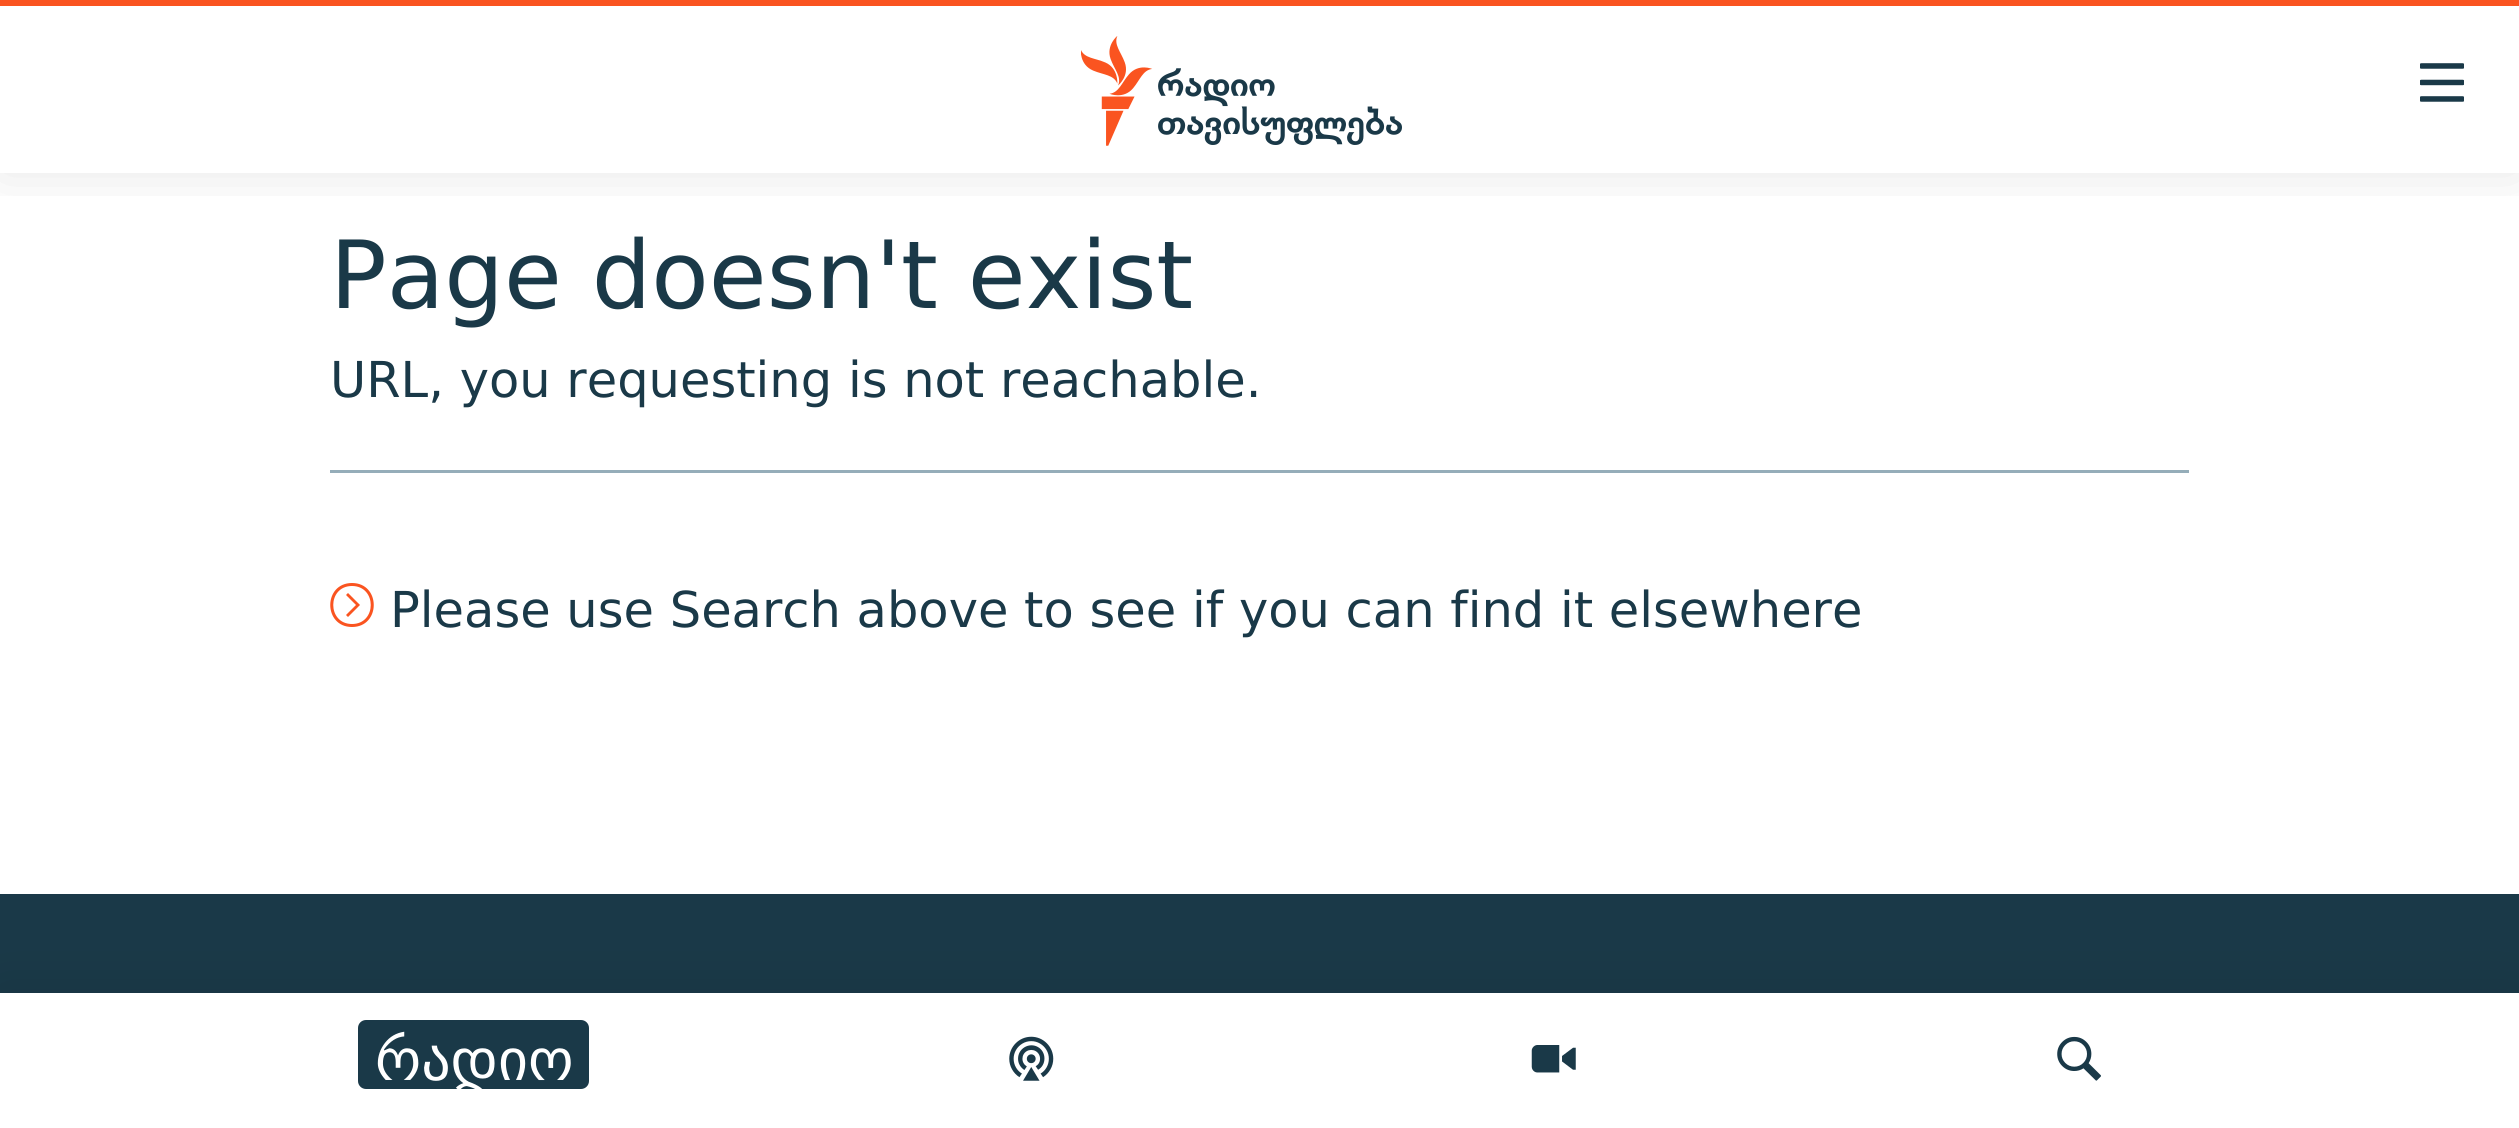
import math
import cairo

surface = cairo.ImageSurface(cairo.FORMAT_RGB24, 2519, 1128)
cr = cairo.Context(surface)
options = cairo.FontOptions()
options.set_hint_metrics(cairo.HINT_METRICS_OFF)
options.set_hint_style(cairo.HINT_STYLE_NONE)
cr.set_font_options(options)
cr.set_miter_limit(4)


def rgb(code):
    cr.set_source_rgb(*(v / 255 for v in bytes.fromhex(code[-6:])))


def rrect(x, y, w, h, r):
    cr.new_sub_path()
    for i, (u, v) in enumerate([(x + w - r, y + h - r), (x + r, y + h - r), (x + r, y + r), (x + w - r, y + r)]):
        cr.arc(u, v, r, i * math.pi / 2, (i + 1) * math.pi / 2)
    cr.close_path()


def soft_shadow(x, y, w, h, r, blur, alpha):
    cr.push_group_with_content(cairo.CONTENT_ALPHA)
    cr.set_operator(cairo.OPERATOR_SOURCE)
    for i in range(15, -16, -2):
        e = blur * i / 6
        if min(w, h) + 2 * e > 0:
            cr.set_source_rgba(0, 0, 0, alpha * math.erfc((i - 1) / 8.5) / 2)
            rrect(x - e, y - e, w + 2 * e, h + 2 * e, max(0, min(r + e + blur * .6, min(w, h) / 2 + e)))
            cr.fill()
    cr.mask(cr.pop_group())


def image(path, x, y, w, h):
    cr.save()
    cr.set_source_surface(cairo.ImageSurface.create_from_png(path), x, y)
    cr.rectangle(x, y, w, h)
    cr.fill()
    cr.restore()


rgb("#ffffff")
cr.paint()
rgb("#95adb9")
cr.rectangle(330, 470, 1859, 3)
cr.fill()
rgb("#fa5420")
cr.new_path()
cr.move_to(348, 617)
cr.line_to(360, 605)
cr.line_to(348, 593)
cr.line_to(346, 595)
cr.line_to(356, 605)
cr.line_to(346, 615)
cr.close_path()
cr.move_to(352, 586)
cr.curve_to(377, 586, 377, 624, 352, 624)
cr.curve_to(327, 624, 327, 586, 352, 586)
cr.close_path()
cr.move_to(352, 583)
cr.curve_to(323, 583, 323, 627, 352, 627)
cr.curve_to(381, 627, 381, 583, 352, 583)
cr.close_path()
cr.fill()
rgb("#1a3948")
cr.rectangle(0, 894, 2519, 99)
cr.fill()
cr.save()
cr.rectangle(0, 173, 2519, 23)
cr.clip()
rgb("#000000")
soft_shadow(0, 0, 2519, 173, 0, 27.5, 0.1)
cr.restore()
rgb("#fa5420")
cr.rectangle(0, 0, 2519, 6)
cr.fill()
image("img/1.png", 1081, 36, 321, 110)
image("img/2.png", 2420, 63, 44, 39)
rgb("#000000")
soft_shadow(0, 993, 2519, 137, 0, 27.5, 0.1)
rgb("#ffffff")
cr.rectangle(0, 993, 2519, 135)
cr.fill()
rgb("#1a3948")
rrect(358, 1020, 231, 69, 8)
cr.fill()
image("img/3.png", 1009, 1036, 45, 45)
image("img/4.png", 1531, 1045, 45, 28)
image("img/5.png", 2057, 1036, 44, 45)
cr.select_font_face("DejaVu Sans")
cr.set_font_size(94)
cr.move_to(330, 308)
cr.show_text("Page doesn't exist")
cr.set_font_size(49.5)
cr.move_to(330, 397)
cr.show_text("URL, you requesting is not reachable.")
cr.move_to(390, 627)
cr.show_text("Please use Search above to see if you can find it elsewhere")
cr.set_font_size(58)
rgb("#ffffff")
cr.move_to(375, 1080)
cr.show_text("რადიო")
surface.write_to_png("page.png")
